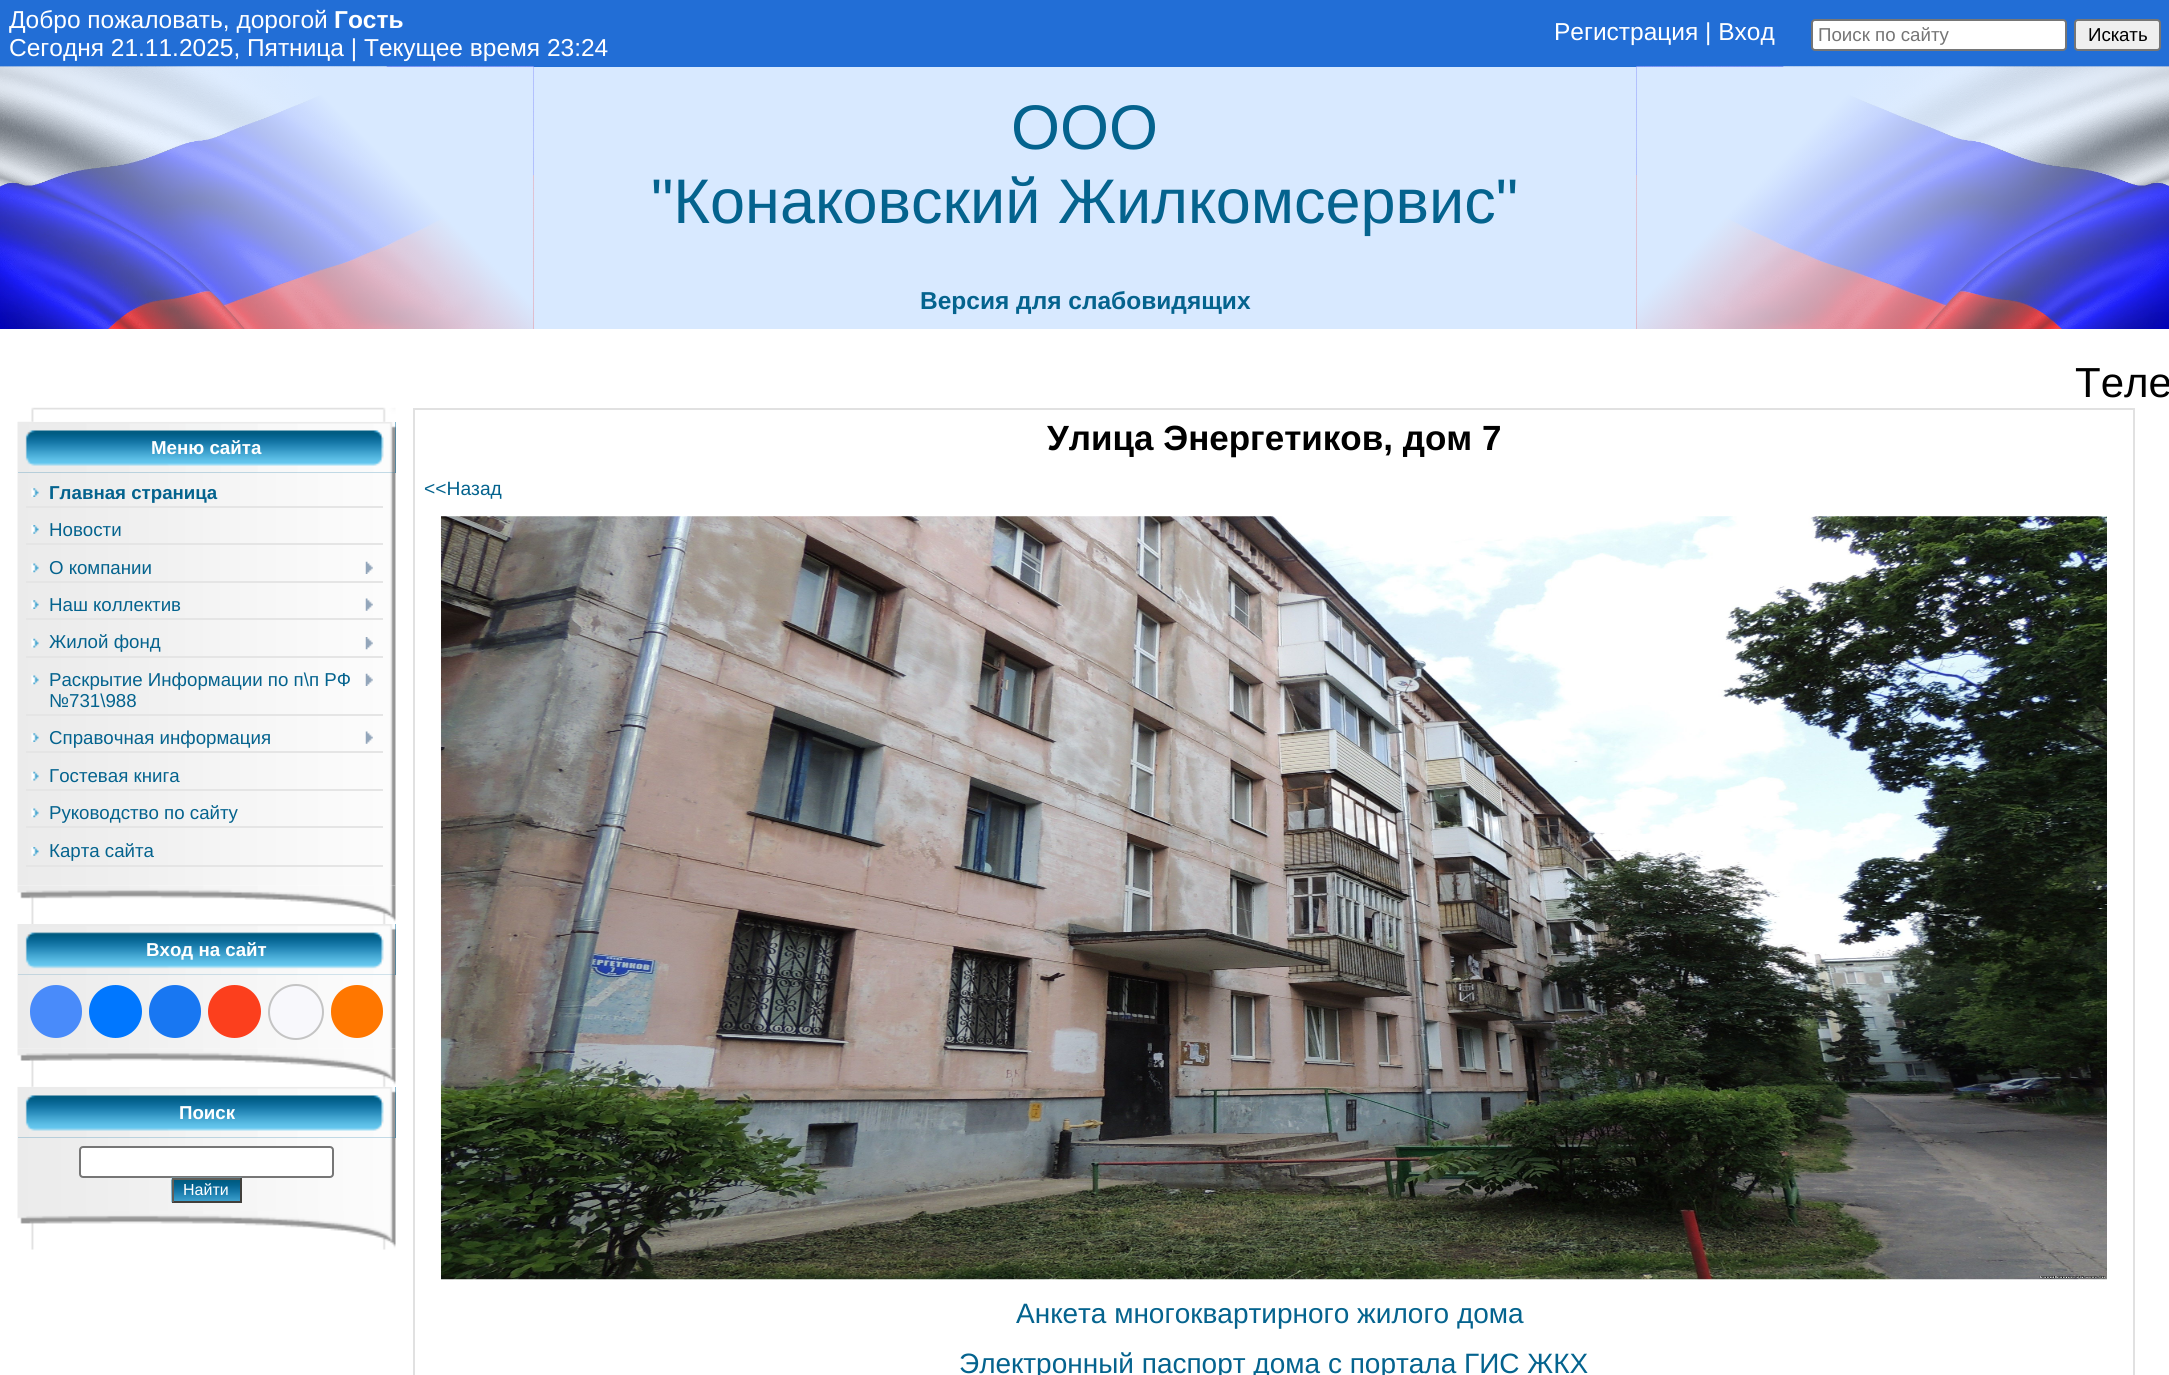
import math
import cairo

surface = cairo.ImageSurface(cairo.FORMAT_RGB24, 2169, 1375)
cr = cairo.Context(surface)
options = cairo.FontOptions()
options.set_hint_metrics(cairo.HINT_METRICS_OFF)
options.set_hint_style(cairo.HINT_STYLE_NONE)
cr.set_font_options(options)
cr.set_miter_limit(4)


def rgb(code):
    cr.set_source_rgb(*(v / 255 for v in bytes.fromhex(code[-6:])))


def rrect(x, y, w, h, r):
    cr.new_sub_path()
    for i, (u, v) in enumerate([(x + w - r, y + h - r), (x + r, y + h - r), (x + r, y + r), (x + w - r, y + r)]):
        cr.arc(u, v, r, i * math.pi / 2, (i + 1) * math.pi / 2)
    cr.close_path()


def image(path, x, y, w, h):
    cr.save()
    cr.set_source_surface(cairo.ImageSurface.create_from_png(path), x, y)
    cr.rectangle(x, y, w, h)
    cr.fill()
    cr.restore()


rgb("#ffffff")
cr.paint()
rgb("#226ed6")
cr.rectangle(0, 0, 2169, 67)
cr.fill()
rgb("#ffffff")
rrect(1812, 20, 254, 30, 3)
cr.fill_preserve()
rgb("#767676")
cr.stroke()
rgb("#efefef")
rrect(2075, 20, 85, 30, 3)
cr.fill_preserve()
rgb("#767676")
cr.stroke()
rgb("#d8e9ff")
cr.rectangle(533, 67, 1104, 262)
cr.fill()
image("img/1.png", 0, 66, 534, 263)
image("img/2.png", 1636, 66, 533, 263)
rgb("#1577a6")
cr.rectangle(18, 422, 378, 51)
cr.fill()
image("img/4.png", 17, 421, 379, 52)
image("img/3.png", 31, 407, 365, 15)
image("img/5.png", 17, 472, 379, 414)
image("img/6.png", 31, 488, 8, 9)
rgb("#e5e5e5")
cr.rectangle(26, 506, 357, 2)
cr.fill()
image("img/7.png", 31, 525, 8, 9)
cr.rectangle(26, 543, 357, 2)
cr.fill()
image("img/8.png", 31, 563, 8, 10)
cr.rectangle(26, 581, 357, 2)
cr.fill()
image("img/9.png", 365, 561, 8, 13)
image("img/6.png", 31, 600, 8, 9)
cr.rectangle(26, 618, 357, 2)
cr.fill()
image("img/10.png", 365, 598, 8, 13)
image("img/11.png", 31, 638, 8, 10)
cr.rectangle(26, 656, 357, 2)
cr.fill()
image("img/12.png", 365, 637, 8, 13)
image("img/8.png", 31, 675, 8, 10)
cr.rectangle(26, 714, 357, 2)
cr.fill()
image("img/9.png", 365, 673, 8, 13)
image("img/6.png", 31, 733, 8, 9)
cr.rectangle(26, 751, 357, 2)
cr.fill()
image("img/10.png", 365, 731, 8, 13)
image("img/11.png", 31, 771, 8, 10)
cr.rectangle(26, 789, 357, 2)
cr.fill()
image("img/8.png", 31, 808, 8, 10)
cr.rectangle(26, 826, 357, 2)
cr.fill()
image("img/7.png", 31, 847, 8, 9)
cr.rectangle(26, 865, 357, 2)
cr.fill()
image("img/13.png", 17, 885, 379, 39)
rgb("#1577a6")
cr.rectangle(18, 924, 378, 51)
cr.fill()
image("img/14.png", 17, 924, 379, 51)
image("img/15.png", 17, 974, 379, 75)
rgb("#498bfa")
rrect(30, 985, 52, 53, 26)
cr.fill()
rgb("#0077ff")
cr.arc(115.5, 1011.5, 26.5, 0, 2 * math.pi)
cr.fill()
rgb("#1877f2")
rrect(149, 985, 52, 53, 26)
cr.fill()
rgb("#fc3f1d")
cr.arc(234.5, 1011.5, 26.5, 0, 2 * math.pi)
cr.fill()
rgb("#f8f8fc")
cr.arc(296, 1012, 27, 0, 2 * math.pi)
cr.fill_preserve()
rgb("#c4c4c4")
cr.stroke()
rgb("#ff7700")
rrect(331, 985, 52, 53, 26)
cr.fill()
rgb("#1577a6")
cr.rectangle(18, 1087, 378, 51)
cr.fill()
image("img/4.png", 17, 1086, 379, 52)
image("img/16.png", 17, 1048, 379, 39)
image("img/17.png", 17, 1137, 379, 74)
rgb("#ffffff")
rrect(80, 1147, 253, 30, 3)
cr.fill_preserve()
rgb("#767676")
cr.stroke()
image("img/18.png", 171, 1177, 71, 26)
for x, y, w, h, color in [
    (172, 1178, 70, 2, "#615e58"),
    (240, 1178, 2, 24, "#413f3b"),
    (172, 1201, 70, 2, "#413f3b"),
    (172, 1178, 2, 24, "#615e58"),
]:
    rgb(color)
    cr.rectangle(x, y, w, h)
    cr.fill()
image("img/19.png", 17, 1211, 379, 39)
cr.rectangle(414, 409, 1720, 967)
rgb("#e1e1e1")
cr.stroke()
image("img/20.png", 441, 516, 1666, 764)
cr.select_font_face("Liberation Sans")
cr.set_font_size(24.5)
rgb("#ffffff")
cr.move_to(9, 28)
cr.show_text("Добро пожаловать, дорогой")
cr.select_font_face("Liberation Sans", cairo.FONT_SLANT_NORMAL, cairo.FONT_WEIGHT_BOLD)
cr.move_to(334, 28)
cr.show_text("Гость")
cr.select_font_face("Liberation Sans")
cr.move_to(1554, 40)
cr.show_text("Регистрация | Вход")
cr.move_to(9, 56)
cr.show_text("Сегодня 21.11.2025, Пятница | Текущее время 23:24")
cr.set_font_size(18.7)
rgb("#757575")
cr.move_to(1818, 41)
cr.show_text("Поиск по сайту")
rgb("#000000")
cr.move_to(2088, 41)
cr.show_text("Искать")
cr.set_font_size(63)
rgb("#04638e")
cr.move_to(1011, 149)
cr.show_text("ООО")
cr.move_to(651, 223)
cr.show_text("\"Конаковский Жилкомсервис\"")
cr.select_font_face("Liberation Sans", cairo.FONT_SLANT_NORMAL, cairo.FONT_WEIGHT_BOLD)
cr.set_font_size(24.5)
cr.move_to(920, 309)
cr.show_text("Версия для слабовидящих")
cr.select_font_face("Liberation Sans")
cr.set_font_size(42)
rgb("#000000")
cr.move_to(2075, 397)
cr.show_text("Теле")
cr.select_font_face("Liberation Sans", cairo.FONT_SLANT_NORMAL, cairo.FONT_WEIGHT_BOLD)
cr.set_font_size(18.7)
rgb("#ffffff")
cr.move_to(151, 454)
cr.show_text("Меню сайта")
rgb("#04638e")
cr.move_to(49, 499)
cr.show_text("Главная страница")
cr.select_font_face("Liberation Sans")
for x, y, s in [
    (49, 536, "Новости"),
    (49, 574, "О компании"),
    (49, 611, "Наш коллектив"),
    (49, 648, "Жилой фонд"),
    (49, 686, "Раскрытие Информации по п\\п РФ"),
    (49, 707, "№731\\988"),
    (49, 744, "Справочная информация"),
    (49, 782, "Гостевая книга"),
    (49, 819, "Руководство по сайту"),
    (49, 857, "Карта сайта"),
]:
    cr.move_to(x, y)
    cr.show_text(s)
cr.select_font_face("Liberation Sans", cairo.FONT_SLANT_NORMAL, cairo.FONT_WEIGHT_BOLD)
rgb("#ffffff")
cr.move_to(146, 956)
cr.show_text("Вход на сайт")
cr.move_to(179, 1119)
cr.show_text("Поиск")
cr.select_font_face("Liberation Sans")
cr.set_font_size(16)
cr.move_to(183, 1195)
cr.show_text("Найти")
cr.select_font_face("Liberation Sans", cairo.FONT_SLANT_NORMAL, cairo.FONT_WEIGHT_BOLD)
cr.set_font_size(35)
rgb("#000000")
cr.move_to(1047, 450)
cr.show_text("Улица Энергетиков, дом 7")
cr.select_font_face("Liberation Sans")
cr.set_font_size(19.25)
rgb("#04638e")
cr.move_to(424, 495)
cr.show_text("<<Назад")
cr.set_font_size(28)
cr.move_to(1016, 1323)
cr.show_text("Анкета многоквартирного жилого дома")
cr.move_to(959, 1373)
cr.show_text("Электронный паспорт дома с портала ГИС ЖКХ")
surface.write_to_png("page.png")
